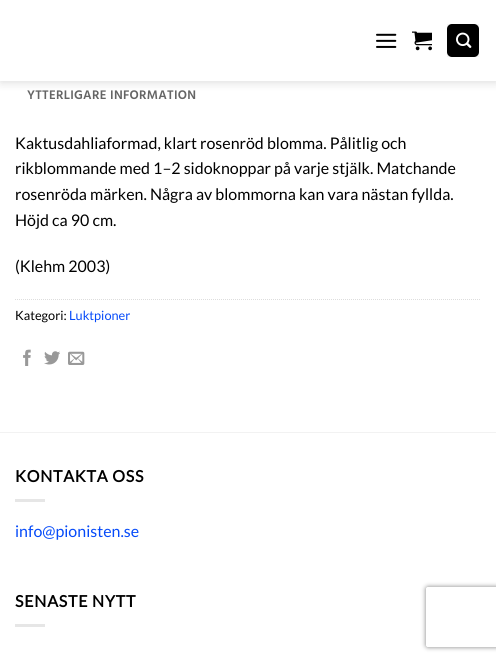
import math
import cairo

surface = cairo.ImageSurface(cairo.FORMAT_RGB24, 496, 661)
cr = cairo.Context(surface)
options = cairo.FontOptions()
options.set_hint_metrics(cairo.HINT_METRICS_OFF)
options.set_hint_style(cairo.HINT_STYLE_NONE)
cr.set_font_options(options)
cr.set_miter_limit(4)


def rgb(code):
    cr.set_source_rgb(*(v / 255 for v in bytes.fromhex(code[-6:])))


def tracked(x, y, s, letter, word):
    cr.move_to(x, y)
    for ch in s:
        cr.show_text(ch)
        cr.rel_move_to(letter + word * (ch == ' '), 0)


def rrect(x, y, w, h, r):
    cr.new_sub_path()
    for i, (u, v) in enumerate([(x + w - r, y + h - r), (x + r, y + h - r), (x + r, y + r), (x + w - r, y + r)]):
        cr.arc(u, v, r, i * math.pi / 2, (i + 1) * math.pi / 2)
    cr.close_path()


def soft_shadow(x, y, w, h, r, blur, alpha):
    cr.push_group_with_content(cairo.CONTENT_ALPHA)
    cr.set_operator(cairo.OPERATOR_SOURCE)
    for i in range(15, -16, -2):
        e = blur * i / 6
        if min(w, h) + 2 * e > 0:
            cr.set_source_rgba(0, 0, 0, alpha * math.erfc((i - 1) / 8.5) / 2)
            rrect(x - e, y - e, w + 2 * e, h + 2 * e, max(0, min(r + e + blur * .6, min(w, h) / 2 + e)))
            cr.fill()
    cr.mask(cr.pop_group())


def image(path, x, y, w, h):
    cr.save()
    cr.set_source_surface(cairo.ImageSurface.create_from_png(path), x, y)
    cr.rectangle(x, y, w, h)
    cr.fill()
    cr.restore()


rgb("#ffffff")
cr.paint()
rgb("#000000")
soft_shadow(1, 1, 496, 81, 0, 5, 0.15)
rgb("#ffffff")
cr.rectangle(0, 0, 496, 81)
cr.fill()
image("img/1.png", 376, 33, 21, 15)
image("img/2.png", 412, 31, 20, 20)
rgb("#000000")
rrect(447, 24, 32, 33, 5)
cr.fill()
cr.rectangle(447.5, 24.5, 31, 32)
cr.set_source_rgba(0, 0, 0, 0.05)
cr.set_line_width(1)
cr.stroke()
image("img/3.png", 456, 32, 16, 16)
cr.new_path()
cr.move_to(15, 299.5)
cr.line_to(481, 299.5)
rgb("#dddddd")
cr.set_dash([1, 1])
cr.stroke()
image("img/4.png", 23, 349, 8, 17)
image("img/5.png", 44, 351, 16, 14)
image("img/6.png", 68, 351, 17, 14)
for x, y, w, h, color in [
    (0, 432, 496, 1, "#f2f2f2"),
    (15, 499, 30, 3, "#e6e6e6"),
    (15, 624, 30, 3, "#e6e6e6"),
]:
    rgb(color)
    cr.rectangle(x, y, w, h)
    cr.fill()
cr.save()
cr.set_fill_rule(cairo.FILL_RULE_EVEN_ODD)
cr.new_path()
cr.move_to(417, 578)
cr.line_to(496, 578)
cr.line_to(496, 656)
cr.line_to(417, 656)
cr.close_path()
cr.move_to(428, 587)
cr.line_to(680, 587)
cr.curve_to(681, 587, 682, 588, 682, 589)
cr.line_to(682, 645)
cr.curve_to(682, 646, 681, 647, 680, 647)
cr.line_to(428, 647)
cr.curve_to(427, 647, 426, 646, 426, 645)
cr.line_to(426, 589)
cr.curve_to(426, 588, 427, 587, 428, 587)
cr.close_path()
cr.clip()
rgb("#808080")
soft_shadow(426, 587, 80, 60, 2, 2.5, 1)
cr.restore()
cr.select_font_face("Hind SemiBold")
cr.set_font_size(12.75)
rgb("#656565")
tracked(27, 99, "YTTERLIGARE INFORMATION", 0.25, 0)
cr.select_font_face("Lato")
cr.set_font_size(16)
rgb("#000000")
for x, y, s in [
    (15, 149, "Kaktusdahliaformad, klart rosenröd blomma. Pålitlig och"),
    (15, 174, "rikblommande med 1–2 sidoknoppar på varje stjälk. Matchande"),
    (15, 200, "rosenröda märken. Några av blommorna kan vara nästan fyllda."),
    (15, 226, "Höjd ca 90 cm."),
    (15, 272, "(Klehm 2003)"),
]:
    cr.move_to(x, y)
    cr.show_text(s)
cr.set_font_size(12.75)
cr.move_to(15, 320)
cr.show_text("Kategori:")
rgb("#054af9")
cr.move_to(69, 320)
cr.show_text("Luktpioner")
cr.select_font_face("Lato", cairo.FONT_SLANT_NORMAL, cairo.FONT_WEIGHT_BOLD)
cr.set_font_size(16)
rgb("#000000")
tracked(15, 482, "KONTAKTA OSS", 0.75, 0)
cr.select_font_face("Lato")
rgb("#054af9")
cr.move_to(15, 537)
cr.show_text("info@pionisten.se")
cr.select_font_face("Lato", cairo.FONT_SLANT_NORMAL, cairo.FONT_WEIGHT_BOLD)
rgb("#000000")
tracked(15, 607, "SENASTE NYTT", 0.75, 0)
surface.write_to_png("page.png")
